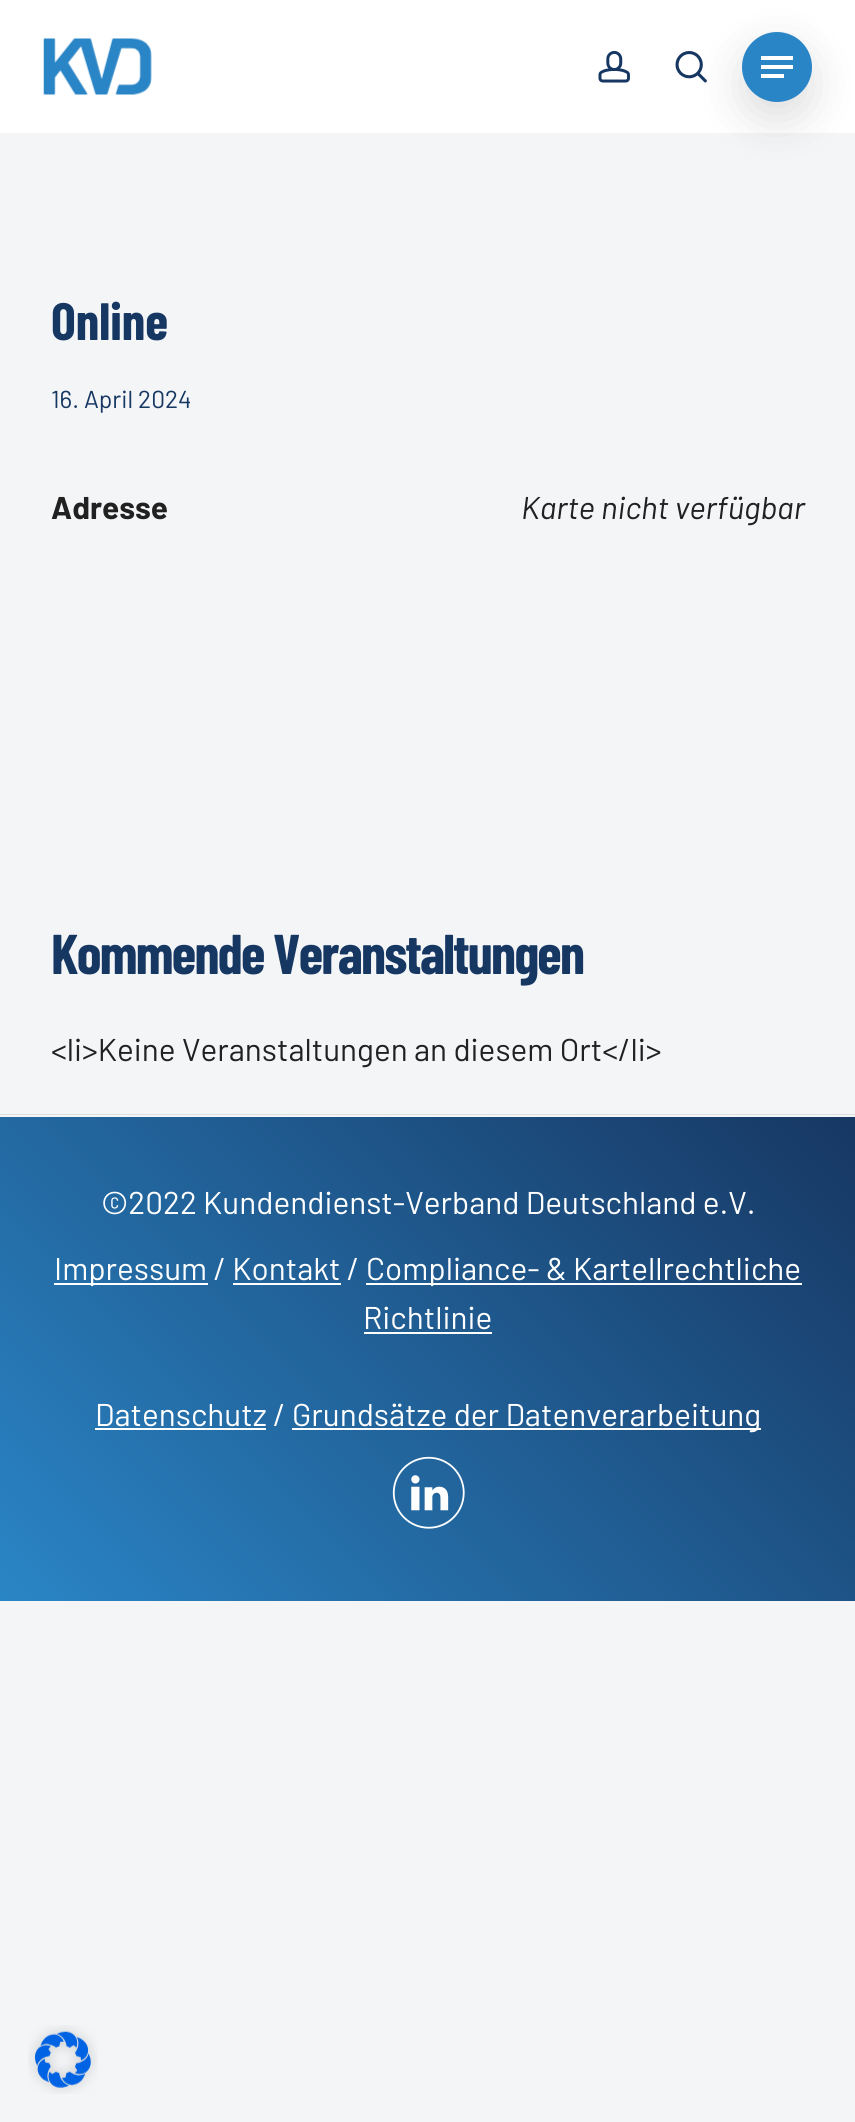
import math
import cairo

surface = cairo.ImageSurface(cairo.FORMAT_RGB24, 855, 2122)
cr = cairo.Context(surface)
options = cairo.FontOptions()
options.set_hint_metrics(cairo.HINT_METRICS_OFF)
options.set_hint_style(cairo.HINT_STYLE_NONE)
cr.set_font_options(options)
cr.set_miter_limit(4)


def rgb(code):
    cr.set_source_rgb(*(v / 255 for v in bytes.fromhex(code[-6:])))


def tracked(x, y, s, letter, word):
    cr.move_to(x, y)
    for ch in s:
        cr.show_text(ch)
        cr.rel_move_to(letter + word * (ch == ' '), 0)


def rrect(x, y, w, h, r):
    cr.new_sub_path()
    for i, (u, v) in enumerate([(x + w - r, y + h - r), (x + r, y + h - r), (x + r, y + r), (x + w - r, y + r)]):
        cr.arc(u, v, r, i * math.pi / 2, (i + 1) * math.pi / 2)
    cr.close_path()


def soft_shadow(x, y, w, h, r, blur, alpha):
    cr.push_group_with_content(cairo.CONTENT_ALPHA)
    cr.set_operator(cairo.OPERATOR_SOURCE)
    for i in range(15, -16, -2):
        e = blur * i / 6
        if min(w, h) + 2 * e > 0:
            cr.set_source_rgba(0, 0, 0, alpha * math.erfc((i - 1) / 8.5) / 2)
            rrect(x - e, y - e, w + 2 * e, h + 2 * e, max(0, min(r + e + blur * .6, min(w, h) / 2 + e)))
            cr.fill()
    cr.mask(cr.pop_group())


def image(path, x, y, w, h):
    cr.save()
    cr.set_source_surface(cairo.ImageSurface.create_from_png(path), x, y)
    cr.rectangle(x, y, w, h)
    cr.fill()
    cr.restore()


rgb("#f3f5f7")
cr.paint()
rgb("#ffffff")
cr.rectangle(0, 0, 855, 133)
cr.fill()
image("img/1.png", 43, 38, 109, 57)
image("img/2.png", 598, 50, 32, 33)
image("img/3.png", 675, 51, 32, 32)
rgb("#000000")
soft_shadow(742, 49, 70, 70, 35, 22, 0.13)
rgb("#2a85c6")
cr.arc(777, 67, 35, 0, 2 * math.pi)
cr.fill()
for x, y, w, h, color in [
    (761, 56, 32, 4, "#ffffff"),
    (761, 74, 23, 4, "#ffffff"),
    (761, 65, 32, 4, "#ffffff"),
    (0, 1114, 855, 1, "#dcdedf"),
]:
    rgb(color)
    cr.rectangle(x, y, w, h)
    cr.fill()
gradient = cairo.LinearGradient(93, 1694, 763, 1024)
gradient.add_color_stop_rgba(0, 0.165, 0.522, 0.776, 1)
gradient.add_color_stop_rgba(1, 0.09, 0.216, 0.388, 1)
cr.set_source(gradient)
cr.rectangle(0, 1117, 855, 484)
cr.fill()
for x, y, w, h, color in [
    (54, 1283, 154, 2, "#ffffff"),
    (366, 1283, 436, 2, "#ffffff"),
    (233, 1283, 108, 2, "#ffffff"),
    (364, 1332, 128, 2, "#ffffff"),
    (95, 1428, 171, 2, "#ffffff"),
    (292, 1428, 469, 2, "#ffffff"),
]:
    rgb(color)
    cr.rectangle(x, y, w, h)
    cr.fill()
image("img/4.png", 392, 1456, 73, 73)
image("img/5.png", 28, 2025, 70, 69)
cr.select_font_face("Barlow Condensed", cairo.FONT_SLANT_NORMAL, cairo.FONT_WEIGHT_BOLD)
cr.set_font_size(52.5)
rgb("#173763")
cr.move_to(51, 340)
cr.show_text("Online")
cr.select_font_face("Barlow")
cr.set_font_size(24.5)
cr.move_to(51, 408)
cr.show_text("16. April 2024")
cr.select_font_face("Barlow", cairo.FONT_SLANT_NORMAL, cairo.FONT_WEIGHT_BOLD)
cr.set_font_size(31.5)
rgb("#212121")
cr.move_to(51, 519)
cr.show_text("Adresse")
cr.select_font_face("Barlow", cairo.FONT_SLANT_ITALIC)
cr.move_to(521, 519)
cr.show_text("Karte nicht verfügbar")
cr.select_font_face("Barlow Condensed", cairo.FONT_SLANT_NORMAL, cairo.FONT_WEIGHT_BOLD)
cr.set_font_size(56)
rgb("#173763")
tracked(51, 974, "Kommende Veranstaltungen", -1.75, 0)
cr.select_font_face("Barlow")
cr.set_font_size(31.5)
rgb("#212121")
cr.move_to(51, 1061)
cr.show_text("<li>Keine Veranstaltungen an diesem Ort</li>")
rgb("#ffffff")
for x, y, s in [
    (101, 1214, "©2022 Kundendienst-Verband Deutschland e.V."),
    (54, 1280, "Impressum / Kontakt /"),
    (366, 1280, "Compliance- & Kartellrechtliche"),
    (363, 1329, "Richtlinie"),
    (95, 1426, "Datenschutz /"),
    (292, 1426, "Grundsätze der Datenverarbeitung"),
]:
    cr.move_to(x, y)
    cr.show_text(s)
surface.write_to_png("page.png")
